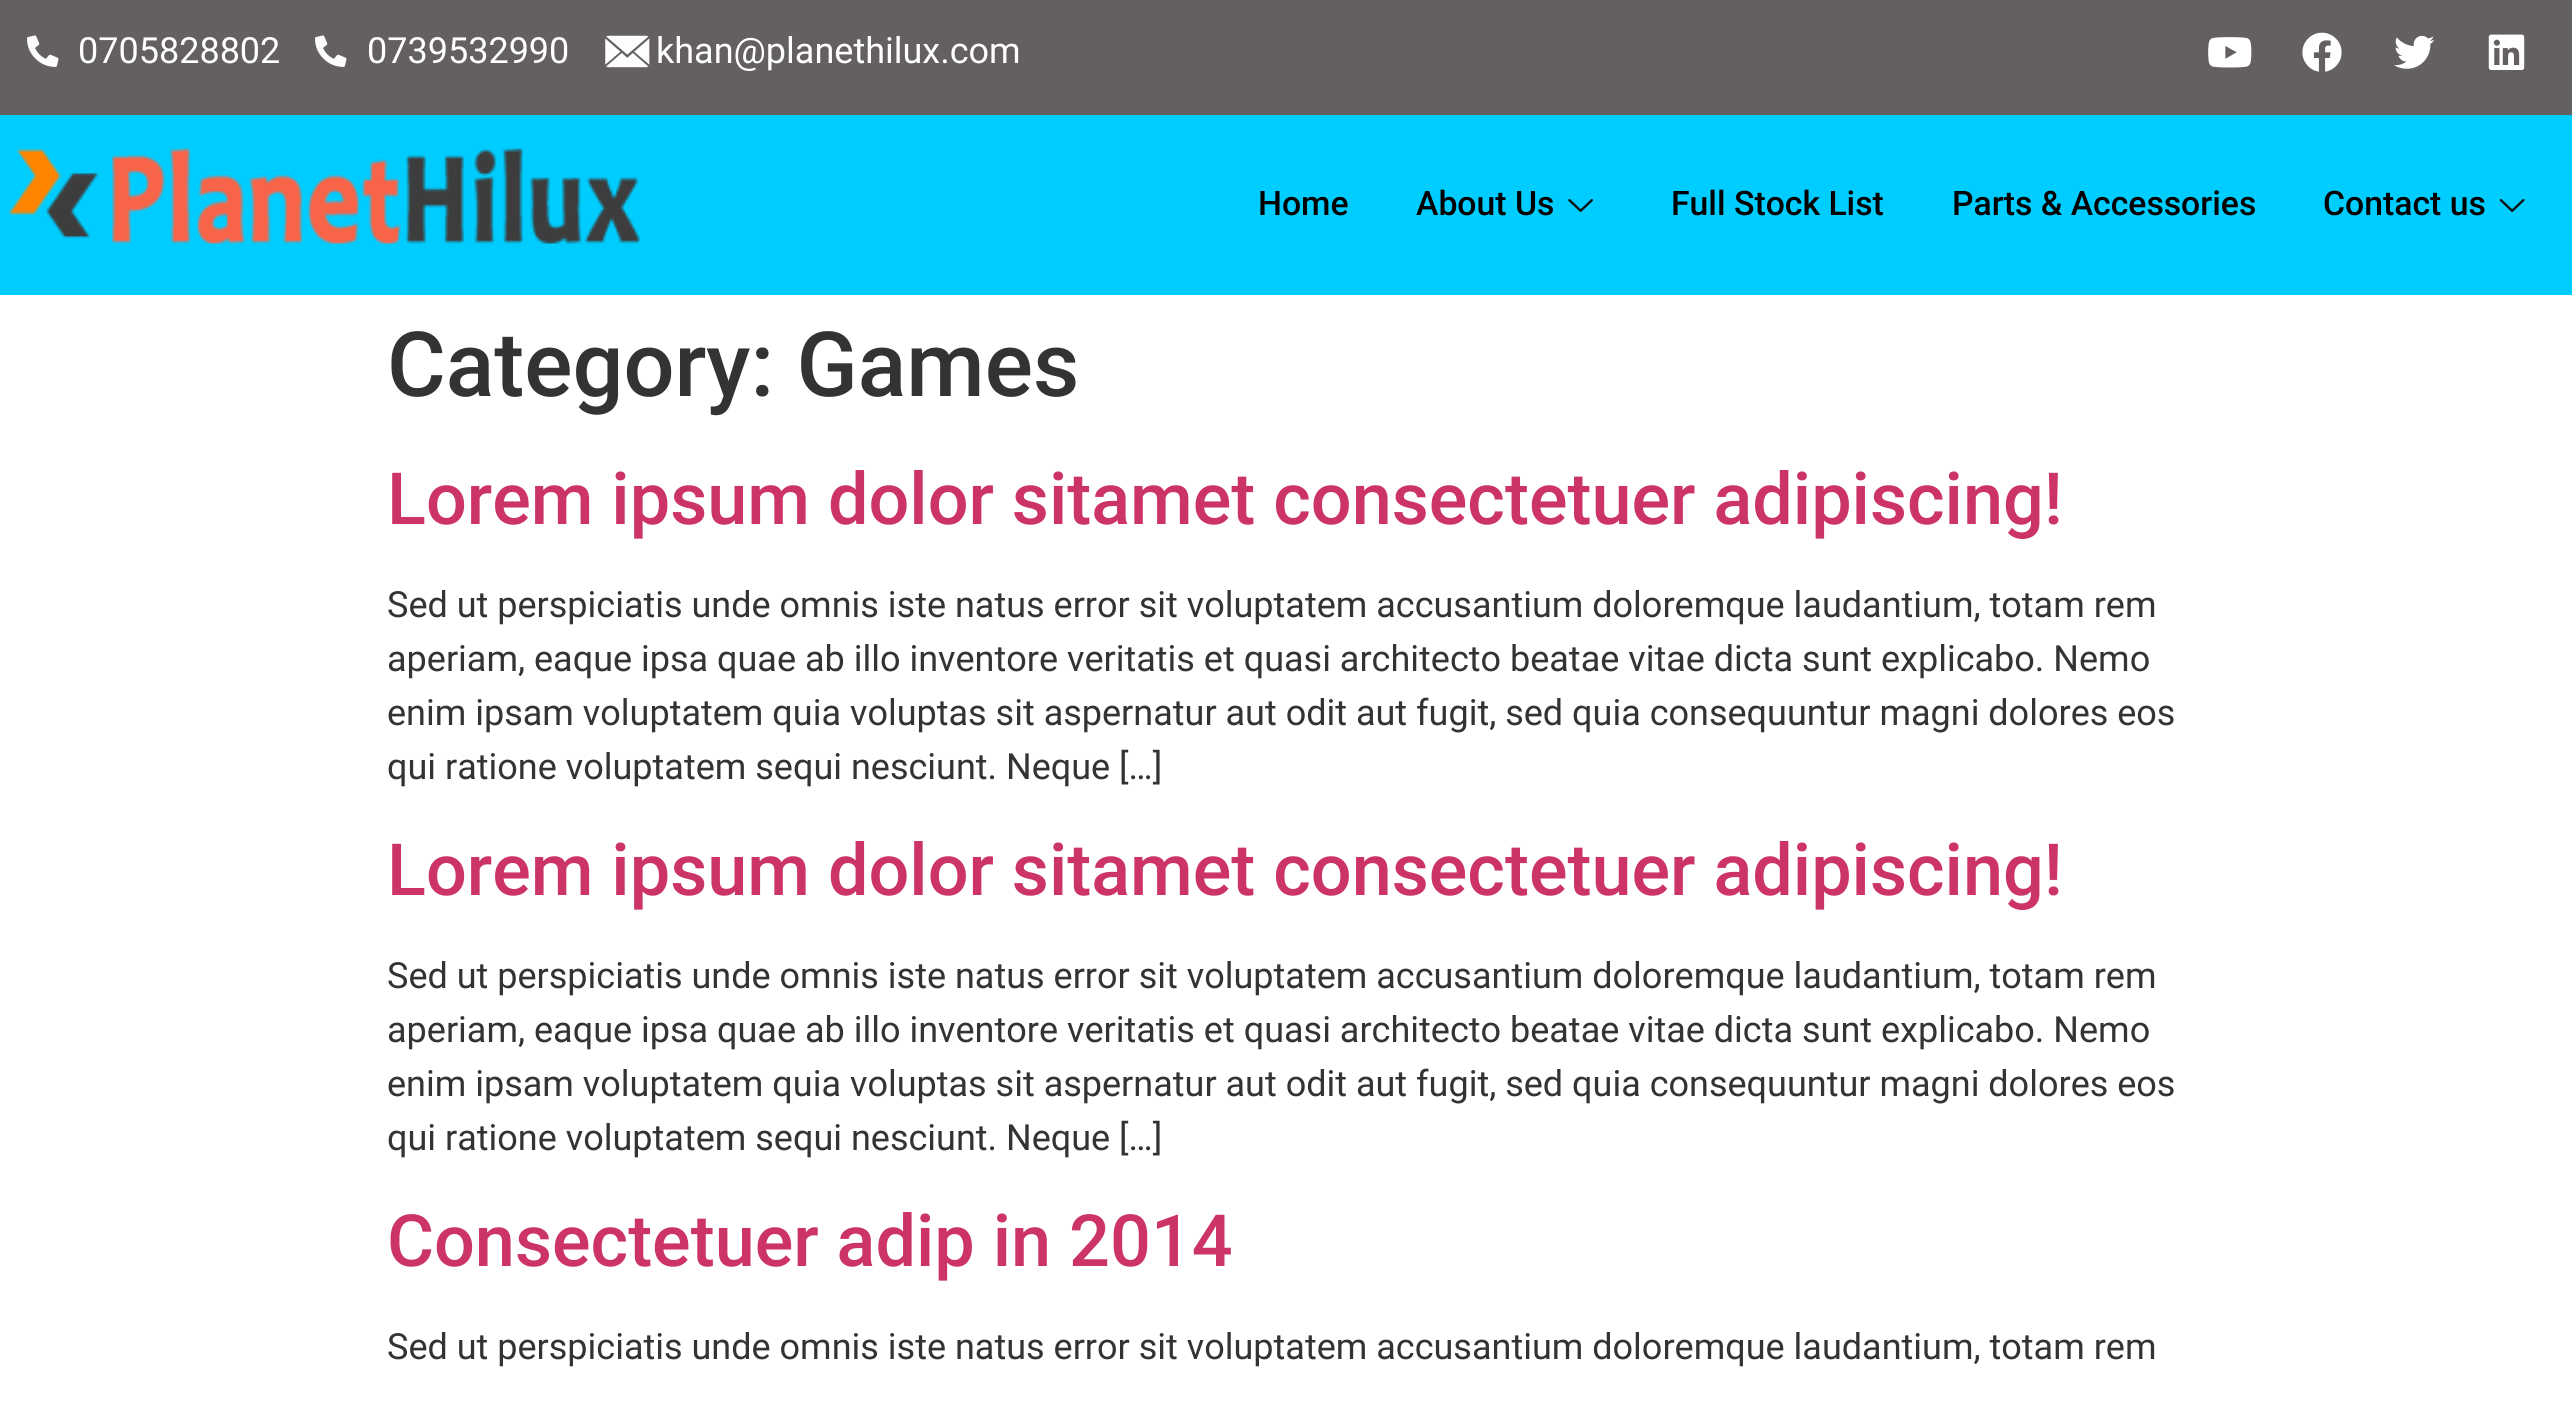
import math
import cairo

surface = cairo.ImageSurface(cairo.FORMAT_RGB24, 2572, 1401)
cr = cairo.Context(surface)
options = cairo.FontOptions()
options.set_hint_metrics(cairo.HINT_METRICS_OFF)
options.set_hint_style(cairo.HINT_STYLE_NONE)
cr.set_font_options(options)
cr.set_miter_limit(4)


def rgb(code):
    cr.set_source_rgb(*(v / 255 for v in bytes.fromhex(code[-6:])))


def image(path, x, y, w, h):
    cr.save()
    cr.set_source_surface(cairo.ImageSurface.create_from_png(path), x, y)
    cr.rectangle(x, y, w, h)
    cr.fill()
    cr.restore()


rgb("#ffffff")
cr.paint()
rgb("#646060")
cr.rectangle(0, 0, 2572, 115)
cr.fill()
image("img/1.png", 27, 35, 32, 32)
image("img/2.png", 315, 35, 32, 32)
image("img/3.png", 605, 35, 45, 33)
image("img/4.png", 2208, 37, 44, 31)
image("img/5.png", 2302, 32, 40, 40)
image("img/6.png", 2394, 35, 41, 34)
image("img/7.png", 2488, 34, 37, 36)
rgb("#00cdff")
cr.rectangle(0, 115, 2572, 180)
cr.fill()
image("img/8.png", 8, 148, 632, 96)
image("img/9.png", 1568, 199, 25, 13)
image("img/10.png", 2499, 199, 26, 13)
cr.select_font_face("Roboto")
cr.set_font_size(36)
rgb("#ffffff")
for x, y, s in [
    (78, 63, "0705828802"),
    (367, 63, "0739532990"),
    (656, 63, "khan@planethilux.com"),
]:
    cr.move_to(x, y)
    cr.show_text(s)
cr.select_font_face("Roboto Medium")
cr.set_font_size(33.75)
rgb("#000000")
for x, y, s in [
    (1258, 215, "Home"),
    (1416, 215, "About Us"),
    (1671, 215, "Full Stock List"),
    (1952, 215, "Parts & Accessories"),
    (2323, 215, "Contact us"),
]:
    cr.move_to(x, y)
    cr.show_text(s)
cr.set_font_size(90)
rgb("#333333")
cr.move_to(387, 396)
cr.show_text("Category: Games")
cr.set_font_size(72)
rgb("#cc3366")
cr.move_to(387, 524)
cr.show_text("Lorem ipsum dolor sitamet consectetuer adipiscing!")
cr.select_font_face("Roboto")
cr.set_font_size(36)
rgb("#333333")
for x, y, s in [
    (387, 617, "Sed ut perspiciatis unde omnis iste natus error sit voluptatem accusantium doloremque laudantium, totam rem"),
    (387, 671, "aperiam, eaque ipsa quae ab illo inventore veritatis et quasi architecto beatae vitae dicta sunt explicabo. Nemo"),
    (387, 725, "enim ipsam voluptatem quia voluptas sit aspernatur aut odit aut fugit, sed quia consequuntur magni dolores eos"),
    (387, 779, "qui ratione voluptatem sequi nesciunt. Neque […]"),
]:
    cr.move_to(x, y)
    cr.show_text(s)
cr.select_font_face("Roboto Medium")
cr.set_font_size(72)
rgb("#cc3366")
cr.move_to(387, 895)
cr.show_text("Lorem ipsum dolor sitamet consectetuer adipiscing!")
cr.select_font_face("Roboto")
cr.set_font_size(36)
rgb("#333333")
for x, y, s in [
    (387, 988, "Sed ut perspiciatis unde omnis iste natus error sit voluptatem accusantium doloremque laudantium, totam rem"),
    (387, 1042, "aperiam, eaque ipsa quae ab illo inventore veritatis et quasi architecto beatae vitae dicta sunt explicabo. Nemo"),
    (387, 1096, "enim ipsam voluptatem quia voluptas sit aspernatur aut odit aut fugit, sed quia consequuntur magni dolores eos"),
    (387, 1150, "qui ratione voluptatem sequi nesciunt. Neque […]"),
]:
    cr.move_to(x, y)
    cr.show_text(s)
cr.select_font_face("Roboto Medium")
cr.set_font_size(72)
rgb("#cc3366")
cr.move_to(387, 1266)
cr.show_text("Consectetuer adip in 2014")
cr.select_font_face("Roboto")
cr.set_font_size(36)
rgb("#333333")
cr.move_to(387, 1359)
cr.show_text("Sed ut perspiciatis unde omnis iste natus error sit voluptatem accusantium doloremque laudantium, totam rem")
surface.write_to_png("page.png")
